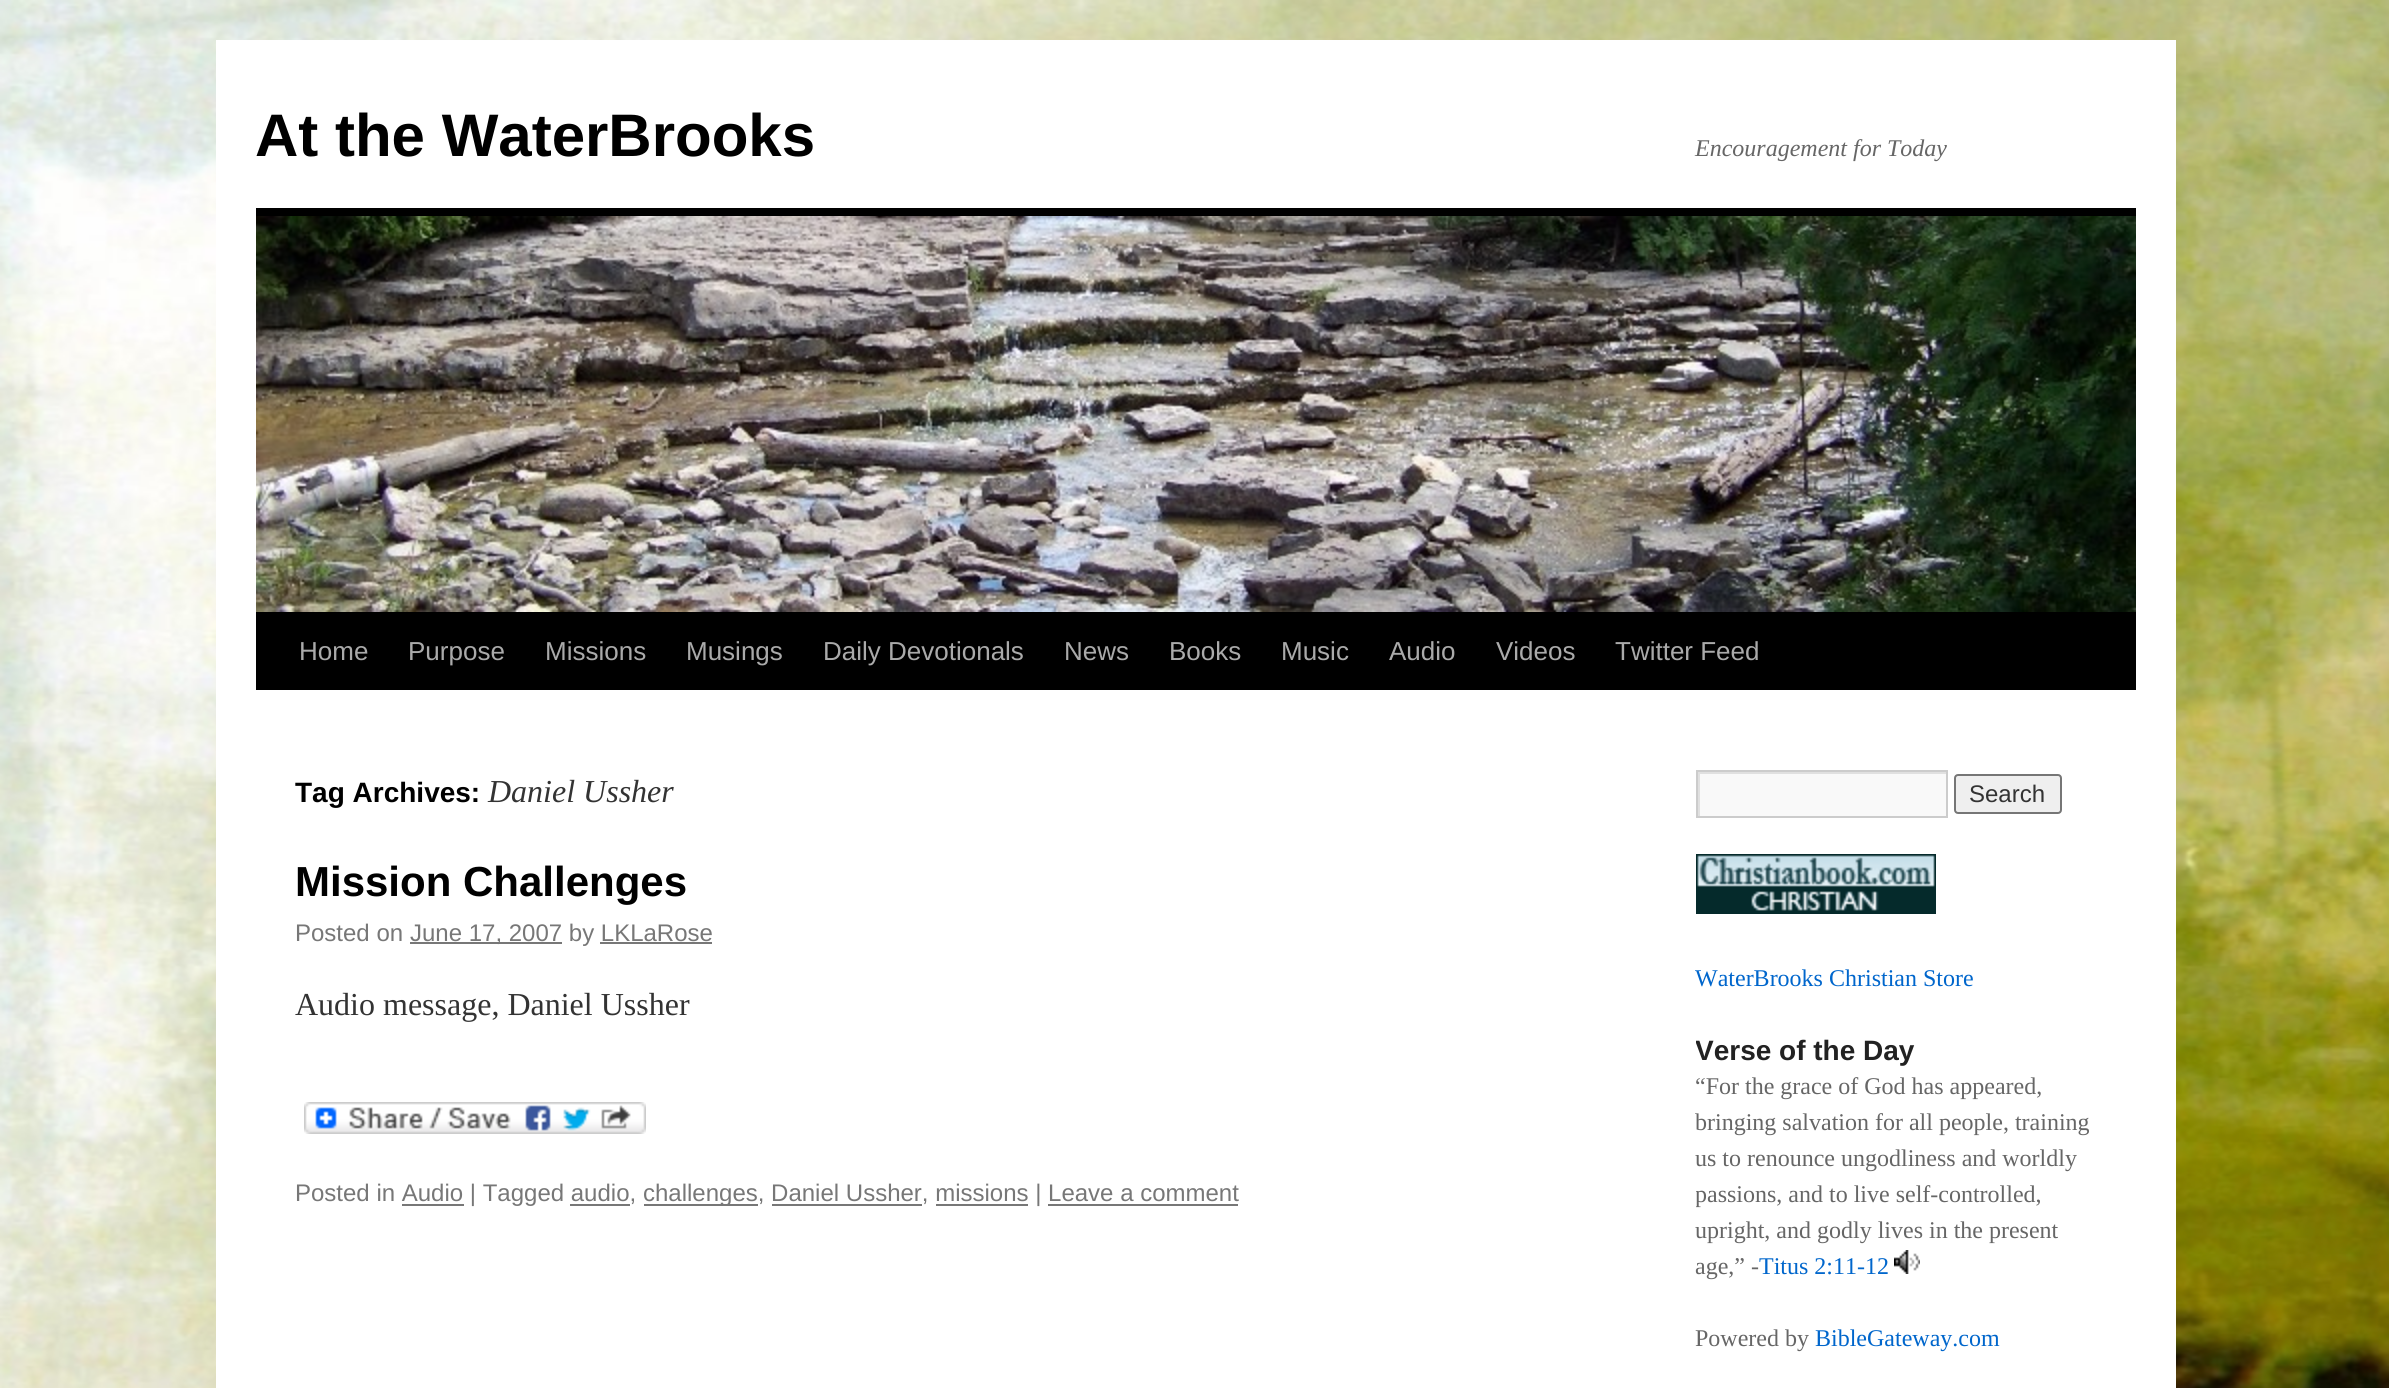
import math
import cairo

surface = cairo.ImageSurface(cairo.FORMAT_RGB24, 2389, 1388)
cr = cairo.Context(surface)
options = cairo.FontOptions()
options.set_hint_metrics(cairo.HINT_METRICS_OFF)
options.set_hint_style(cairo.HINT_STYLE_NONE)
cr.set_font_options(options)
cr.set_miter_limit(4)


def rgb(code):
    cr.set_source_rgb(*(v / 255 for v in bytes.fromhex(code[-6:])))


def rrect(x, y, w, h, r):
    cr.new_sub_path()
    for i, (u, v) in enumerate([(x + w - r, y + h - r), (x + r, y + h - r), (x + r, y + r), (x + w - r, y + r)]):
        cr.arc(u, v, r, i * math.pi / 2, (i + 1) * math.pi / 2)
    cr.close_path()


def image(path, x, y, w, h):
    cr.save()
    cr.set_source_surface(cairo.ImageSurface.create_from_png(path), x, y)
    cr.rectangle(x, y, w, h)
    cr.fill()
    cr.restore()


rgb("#ffffff")
cr.paint()
image("img/1.png", 0, 0, 2389, 1388)
for x, y, w, h, color in [
    (216, 40, 1960, 1348, "#ffffff"),
    (256, 208, 1880, 8, "#000000"),
    (256, 612, 1880, 78, "#000000"),
]:
    rgb(color)
    cr.rectangle(x, y, w, h)
    cr.fill()
image("img/2.png", 256, 216, 1880, 396)
rgb("#777777")
cr.rectangle(410, 942, 152, 2)
cr.fill()
cr.rectangle(600, 942, 112, 2)
cr.fill()
image("img/3.png", 304, 1102, 342, 32)
for x, y, w, h, color in [
    (402, 1204, 62, 2, "#777777"),
    (570, 1204, 60, 2, "#777777"),
    (644, 1204, 114, 2, "#777777"),
    (772, 1204, 150, 2, "#777777"),
    (936, 1204, 92, 2, "#777777"),
    (1048, 1204, 190, 2, "#777777"),
    (1700, 774, 246, 42, "#f9f9f9"),
]:
    rgb(color)
    cr.rectangle(x, y, w, h)
    cr.fill()
cr.save()
cr.rectangle(1698, 772, 248, 44)
cr.clip()
rgb("#e0e0e0")
cr.set_fill_rule(cairo.FILL_RULE_EVEN_ODD)
cr.new_path()
cr.move_to(1500, 574)
cr.line_to(2144, 574)
cr.line_to(2144, 1014)
cr.line_to(1500, 1014)
cr.close_path()
cr.move_to(1700, 774)
cr.line_to(1948, 774)
cr.line_to(1948, 818)
cr.line_to(1700, 818)
cr.close_path()
cr.fill()
cr.restore()
cr.rectangle(1697, 771, 250, 46)
rgb("#cccccc")
cr.stroke()
rgb("#efefef")
rrect(1955, 775, 106, 38, 3)
cr.fill_preserve()
rgb("#767676")
cr.stroke()
image("img/4.png", 1696, 854, 240, 60)
image("img/5.png", 1894, 1250, 26, 24)
cr.select_font_face("Liberation Sans", cairo.FONT_SLANT_NORMAL, cairo.FONT_WEIGHT_BOLD)
cr.set_font_size(60)
rgb("#000000")
cr.move_to(255, 156)
cr.show_text("At the WaterBrooks")
cr.select_font_face("Liberation Serif", cairo.FONT_SLANT_ITALIC)
cr.set_font_size(24)
rgb("#666666")
cr.move_to(1695, 156)
cr.show_text("Encouragement for Today")
cr.select_font_face("Liberation Sans")
cr.set_font_size(26)
rgb("#aaaaaa")
for x, y, s in [
    (299, 660, "Home"),
    (408, 660, "Purpose"),
    (545, 660, "Missions"),
    (686, 660, "Musings"),
    (823, 660, "Daily Devotionals"),
    (1064, 660, "News"),
    (1169, 660, "Books"),
    (1281, 660, "Music"),
    (1389, 660, "Audio"),
    (1496, 660, "Videos"),
    (1615, 660, "Twitter Feed"),
]:
    cr.move_to(x, y)
    cr.show_text(s)
cr.select_font_face("Liberation Sans", cairo.FONT_SLANT_NORMAL, cairo.FONT_WEIGHT_BOLD)
cr.set_font_size(28)
rgb("#000000")
cr.move_to(295, 802)
cr.show_text("Tag Archives:")
cr.select_font_face("Liberation Serif", cairo.FONT_SLANT_ITALIC)
cr.set_font_size(32)
rgb("#333333")
cr.move_to(488, 802)
cr.show_text("Daniel Ussher")
cr.select_font_face("Liberation Sans", cairo.FONT_SLANT_NORMAL, cairo.FONT_WEIGHT_BOLD)
cr.set_font_size(42)
rgb("#000000")
cr.move_to(295, 896)
cr.show_text("Mission Challenges")
cr.select_font_face("Liberation Sans")
cr.set_font_size(24)
rgb("#777777")
cr.move_to(295, 941)
cr.show_text("Posted on")
cr.move_to(410, 941)
cr.show_text("June 17, 2007 by LKLaRose")
cr.select_font_face("Liberation Serif")
cr.set_font_size(32)
rgb("#333333")
cr.move_to(295, 1015)
cr.show_text("Audio message, Daniel Ussher")
cr.select_font_face("Liberation Sans")
cr.set_font_size(24)
rgb("#777777")
cr.move_to(295, 1201)
cr.show_text("Posted in Audio | Tagged audio,")
cr.move_to(643, 1201)
cr.show_text("challenges, Daniel Ussher, missions | Leave a comment")
rgb("#333333")
cr.move_to(1969, 802)
cr.show_text("Search")
cr.select_font_face("Liberation Serif")
rgb("#0066cc")
cr.move_to(1695, 986)
cr.show_text("WaterBrooks Christian Store")
cr.save()
cr.rectangle(1696, 770, 440, 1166)
cr.clip()
cr.select_font_face("Liberation Sans", cairo.FONT_SLANT_NORMAL, cairo.FONT_WEIGHT_BOLD)
cr.set_font_size(28)
rgb("#222222")
cr.move_to(1695, 1060)
cr.show_text("Verse of the Day")
cr.restore()
rgb("#666666")
for x, y, s in [
    (1695, 1094, "“For the grace of God has appeared,"),
    (1695, 1130, "bringing salvation for all people, training"),
    (1695, 1166, "us to renounce ungodliness and worldly"),
]:
    cr.move_to(x, y)
    cr.show_text(s)
cr.save()
cr.rectangle(1696, 770, 440, 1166)
cr.clip()
cr.move_to(1695, 1202)
cr.show_text("passions, and to live self-controlled,")
cr.restore()
cr.move_to(1695, 1238)
cr.show_text("upright, and godly lives in the present")
cr.move_to(1695, 1274)
cr.show_text("age,” -")
rgb("#0066cc")
cr.move_to(1759, 1274)
cr.show_text("Titus 2:11-12")
rgb("#666666")
cr.move_to(1695, 1346)
cr.show_text("Powered by")
rgb("#0066cc")
cr.move_to(1815, 1346)
cr.show_text("BibleGateway.com")
surface.write_to_png("page.png")
